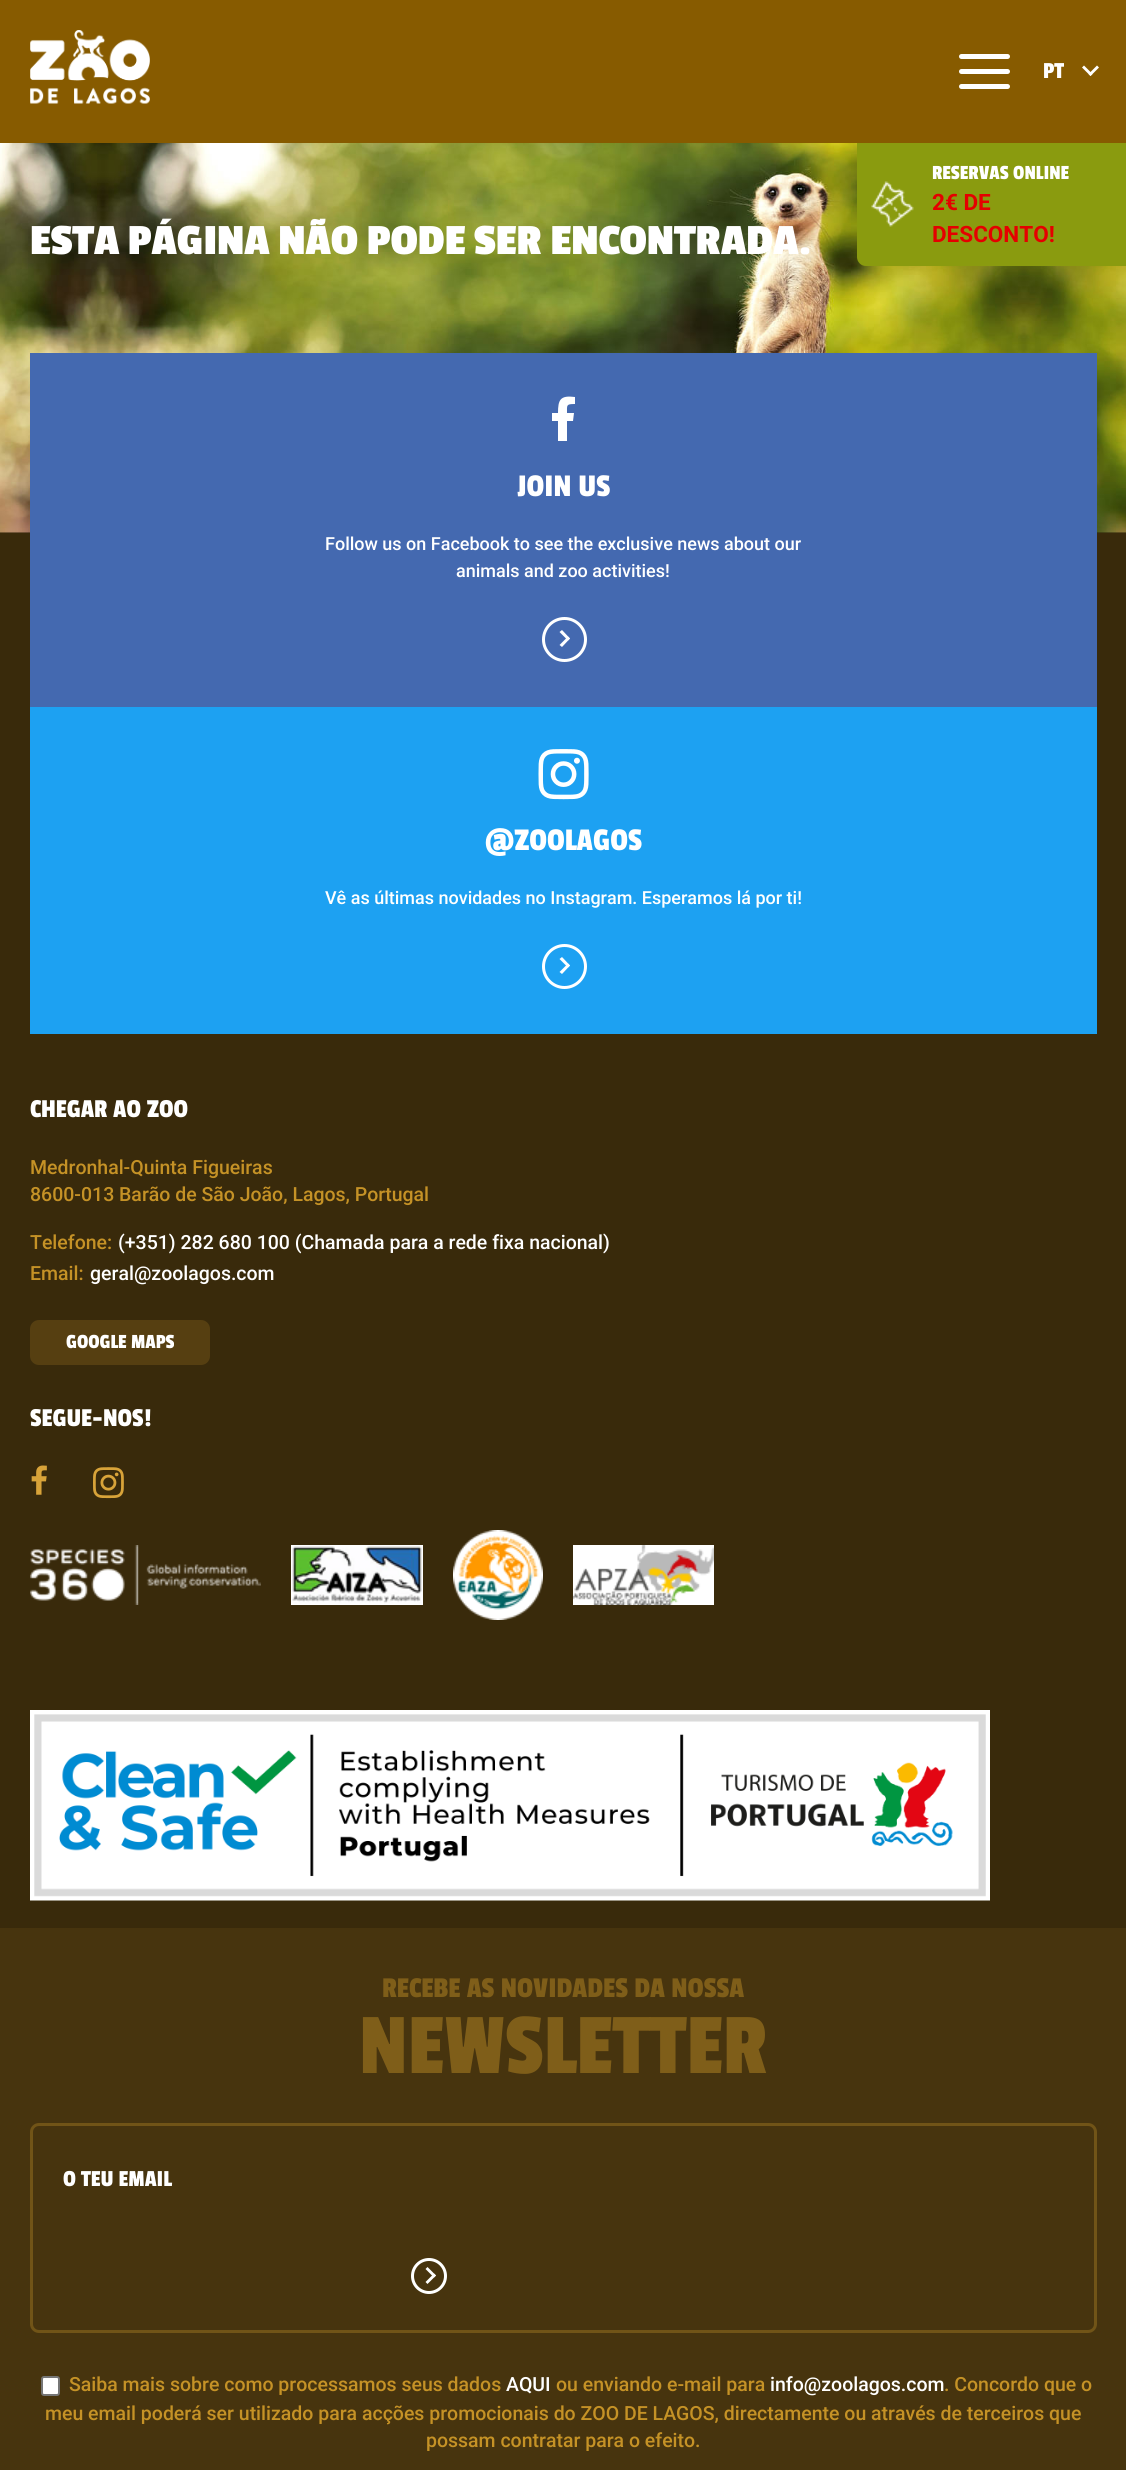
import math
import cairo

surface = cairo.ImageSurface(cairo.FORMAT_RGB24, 1126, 2470)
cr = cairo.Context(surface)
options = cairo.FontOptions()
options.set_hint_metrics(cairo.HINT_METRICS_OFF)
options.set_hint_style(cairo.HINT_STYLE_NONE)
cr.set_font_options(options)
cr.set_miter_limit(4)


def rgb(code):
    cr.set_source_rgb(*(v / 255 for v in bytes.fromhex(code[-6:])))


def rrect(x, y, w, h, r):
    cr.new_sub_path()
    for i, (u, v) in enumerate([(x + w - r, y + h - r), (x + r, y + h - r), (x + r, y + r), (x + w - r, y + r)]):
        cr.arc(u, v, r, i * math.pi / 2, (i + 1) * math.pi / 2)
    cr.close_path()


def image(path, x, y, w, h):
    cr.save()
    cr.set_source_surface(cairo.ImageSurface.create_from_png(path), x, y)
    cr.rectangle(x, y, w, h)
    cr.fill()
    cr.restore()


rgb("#2b2008")
cr.paint()
image("img/1.png", 0, 143, 1126, 390)
rgb("#875b00")
cr.rectangle(0, 0, 1126, 143)
cr.fill()
image("img/2.png", 30, 30, 120, 74)
rgb("#ffffff")
rrect(959, 54, 51, 5, 2.5)
cr.fill()
rrect(959, 69, 51, 5, 2.5)
cr.fill()
rrect(959, 84, 51, 5, 2.5)
cr.fill()
cr.new_path()
cr.move_to(1097, 65.5)
cr.line_to(1099, 67.5)
cr.line_to(1090.5, 76)
cr.line_to(1088.5, 74)
cr.close_path()
cr.fill()
cr.new_path()
cr.move_to(1084, 65.5)
cr.line_to(1092.5, 74)
cr.line_to(1090.5, 76)
cr.line_to(1082, 67.5)
cr.close_path()
cr.fill()
rgb("#8a9b0f")
cr.new_path()
cr.move_to(857, 143)
cr.line_to(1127, 143)
cr.line_to(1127, 266)
cr.line_to(866, 266)
cr.curve_to(861, 266, 857, 262, 857, 257)
cr.close_path()
cr.fill()
image("img/3.png", 871, 181, 43, 46)
rgb("#392a0b")
cr.rectangle(0, 533, 1126, 1395)
cr.fill()
rgb("#4469b0")
cr.rectangle(30, 353, 1067, 354)
cr.fill()
rgb("#ffffff")
cr.new_path()
cr.move_to(575, 397)
cr.line_to(575, 404)
cr.curve_to(566, 404, 567, 405, 567, 413)
cr.line_to(574, 413)
cr.line_to(573, 421)
cr.line_to(567, 421)
cr.line_to(567, 441)
cr.line_to(558, 441)
cr.line_to(558, 421)
cr.line_to(552, 421)
cr.line_to(552, 413)
cr.line_to(558, 413)
cr.curve_to(558, 400, 560, 395, 575, 397)
cr.close_path()
cr.fill()
cr.arc(564.5, 639.5, 21, 0, 2 * math.pi)
cr.set_line_width(3)
cr.stroke()
cr.new_path()
cr.move_to(559.5, 632)
cr.line_to(562, 630)
cr.line_to(570, 638.5)
cr.line_to(568, 640.5)
cr.close_path()
cr.fill()
cr.new_path()
cr.move_to(559.5, 645)
cr.line_to(568, 636.5)
cr.line_to(570, 638.5)
cr.line_to(562, 647)
cr.close_path()
cr.fill()
rgb("#1da1f2")
cr.rectangle(30, 707, 1067, 327)
cr.fill()
image("img/4.png", 538, 749, 51, 51)
cr.arc(564.5, 966.5, 21, 0, 2 * math.pi)
rgb("#ffffff")
cr.stroke()
cr.new_path()
cr.move_to(559.5, 959)
cr.line_to(562, 957)
cr.line_to(570, 965.5)
cr.line_to(568, 967.5)
cr.close_path()
cr.fill()
cr.new_path()
cr.move_to(559.5, 972)
cr.line_to(568, 963.5)
cr.line_to(570, 965.5)
cr.line_to(562, 974)
cr.close_path()
cr.fill()
rgb("#563f11")
rrect(30, 1320, 180, 45, 9)
cr.fill()
image("img/5.png", 31, 1465, 16, 30)
image("img/6.png", 93, 1467, 31, 32)
image("img/7.png", 30, 1545, 231, 60)
image("img/8.png", 291, 1545, 132, 60)
image("img/9.png", 453, 1530, 90, 90)
image("img/10.png", 573, 1545, 141, 60)
image("img/11.png", 30, 1710, 960, 191)
rgb("#47340e")
cr.rectangle(0, 1928, 1126, 542)
cr.fill()
rrect(31.5, 2124.5, 1064, 207, 7.5)
rgb("#715417")
cr.stroke()
cr.arc(429, 2276, 16.5, 0, 2 * math.pi)
rgb("#ffffff")
cr.stroke()
cr.new_path()
cr.move_to(425.5, 2269)
cr.line_to(427.5, 2267)
cr.line_to(436, 2275.5)
cr.line_to(434, 2277.5)
cr.close_path()
cr.fill()
cr.new_path()
cr.move_to(425.5, 2282)
cr.line_to(434, 2273.5)
cr.line_to(436, 2275.5)
cr.line_to(427.5, 2284)
cr.close_path()
cr.fill()
rrect(42, 2377, 17, 18, 2)
cr.fill_preserve()
rgb("#767676")
cr.set_line_width(2)
cr.stroke()
cr.select_font_face("Passion One", cairo.FONT_SLANT_NORMAL, cairo.FONT_WEIGHT_BOLD)
cr.set_font_size(45)
rgb("#ffffff")
cr.move_to(30, 254)
cr.show_text("ESTA PÁGINA NÃO PODE SER ENCONTRADA.")
cr.select_font_face("Passion One")
cr.set_font_size(24)
cr.move_to(1043, 78)
cr.show_text("PT")
cr.set_font_size(21)
cr.move_to(932, 179)
cr.show_text("RESERVAS ONLINE")
cr.select_font_face("Roboto", cairo.FONT_SLANT_NORMAL, cairo.FONT_WEIGHT_BOLD)
cr.set_font_size(22.5)
rgb("#e50000")
cr.move_to(932, 210)
cr.show_text("2€ DE")
cr.move_to(932, 242)
cr.show_text("DESCONTO!")
cr.select_font_face("Passion One")
cr.set_font_size(33)
rgb("#ffffff")
cr.move_to(517, 496)
cr.show_text("JOIN US")
cr.select_font_face("Roboto Medium")
cr.set_font_size(18)
cr.move_to(325, 550)
cr.show_text("Follow us on Facebook to see the exclusive news about our")
cr.move_to(456, 577)
cr.show_text("animals and zoo activities!")
cr.select_font_face("Passion One")
cr.set_font_size(33)
cr.move_to(485, 850)
cr.show_text("@ZOOLAGOS")
cr.select_font_face("Roboto Medium")
cr.set_font_size(18)
cr.move_to(325, 904)
cr.show_text("Vê as últimas novidades no Instagram. Esperamos lá por ti!")
cr.select_font_face("Passion One")
cr.set_font_size(27)
cr.move_to(30, 1117)
cr.show_text("CHEGAR AO ZOO")
cr.select_font_face("Roboto Medium")
cr.set_font_size(19.5)
rgb("#c59226")
for x, y, s in [
    (30, 1174, "Medronhal-Quinta Figueiras"),
    (30, 1201, "8600-013 Barão de São João, Lagos, Portugal"),
    (30, 1249, "Telefone:"),
]:
    cr.move_to(x, y)
    cr.show_text(s)
rgb("#ffffff")
cr.move_to(118, 1249)
cr.show_text("(+351) 282 680 100 (Chamada para a rede fixa nacional)")
rgb("#c59226")
cr.move_to(30, 1280)
cr.show_text("Email:")
rgb("#ffffff")
cr.move_to(90, 1280)
cr.show_text("geral@zoolagos.com")
cr.select_font_face("Passion One")
cr.set_font_size(21)
cr.move_to(66, 1348)
cr.show_text("GOOGLE MAPS")
cr.set_font_size(27)
cr.move_to(30, 1426)
cr.show_text("SEGUE-NOS!")
cr.set_font_size(30)
rgb("#7f5e19")
cr.move_to(382, 1997)
cr.show_text("RECEBE AS NOVIDADES DA NOSSA")
cr.set_font_size(90)
cr.move_to(359, 2073)
cr.show_text("NEWSLETTER")
cr.set_font_size(24)
rgb("#ffffff")
cr.move_to(63, 2186)
cr.show_text("O TEU EMAIL")
cr.select_font_face("Roboto Medium")
cr.set_font_size(19.5)
rgb("#c59226")
cr.move_to(69, 2391)
cr.show_text("Saiba mais sobre como processamos seus dados")
rgb("#ffffff")
cr.move_to(506, 2391)
cr.show_text("AQUI")
rgb("#c59226")
cr.move_to(556, 2391)
cr.show_text("ou enviando e-mail para")
rgb("#ffffff")
cr.move_to(770, 2391)
cr.show_text("info@zoolagos.com")
rgb("#c59226")
for x, y, s in [
    (944, 2391, ". Concordo que o"),
    (45, 2420, "meu email poderá ser utilizado para acções promocionais do ZOO DE LAGOS, directamente ou através de terceiros que"),
    (426, 2447, "possam contratar para o efeito."),
]:
    cr.move_to(x, y)
    cr.show_text(s)
surface.write_to_png("page.png")
